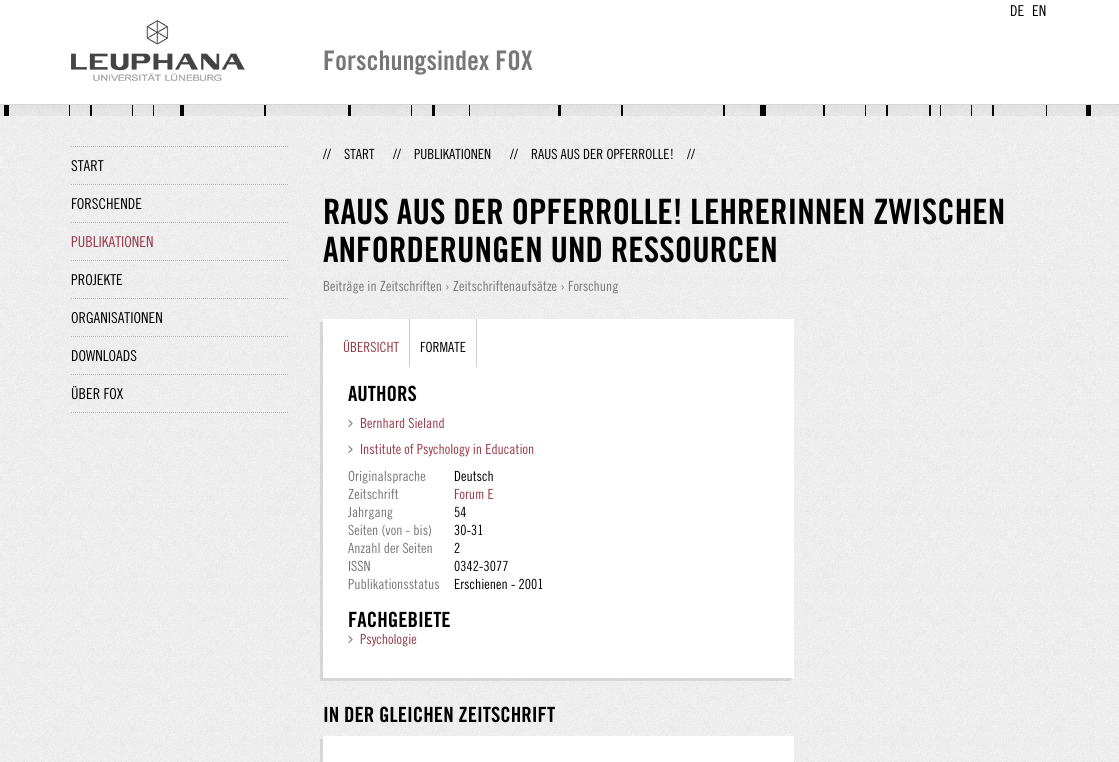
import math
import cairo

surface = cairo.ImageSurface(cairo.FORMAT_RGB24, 1119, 762)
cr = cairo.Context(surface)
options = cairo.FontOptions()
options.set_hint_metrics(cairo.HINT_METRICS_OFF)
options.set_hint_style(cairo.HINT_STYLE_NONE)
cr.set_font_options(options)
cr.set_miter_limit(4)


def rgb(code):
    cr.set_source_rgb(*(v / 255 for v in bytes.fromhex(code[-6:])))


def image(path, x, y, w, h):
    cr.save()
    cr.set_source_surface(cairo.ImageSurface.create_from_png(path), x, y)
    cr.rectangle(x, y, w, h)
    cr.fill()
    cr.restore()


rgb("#ffffff")
cr.paint()
image("img/1.png", 0, 116, 1119, 646)
rgb("#d6d6d6")
cr.rectangle(0, 104, 1119, 1)
cr.fill()
image("img/2.png", 71, 20, 174, 61)
image("img/3.png", 0, 105, 1119, 11)
cr.new_path()
cr.move_to(71, 412.5)
cr.line_to(288, 412.5)
rgb("#b5b5b5")
cr.set_line_width(1)
cr.set_dash([1, 1])
cr.stroke()
cr.new_path()
cr.move_to(71, 146.5)
cr.line_to(288, 146.5)
cr.stroke()
cr.new_path()
cr.move_to(71, 184.5)
cr.line_to(288, 184.5)
cr.stroke()
cr.new_path()
cr.move_to(71, 222.5)
cr.line_to(288, 222.5)
cr.stroke()
cr.new_path()
cr.move_to(71, 260.5)
cr.line_to(288, 260.5)
cr.stroke()
cr.new_path()
cr.move_to(71, 298.5)
cr.line_to(288, 298.5)
cr.stroke()
cr.new_path()
cr.move_to(71, 336.5)
cr.line_to(288, 336.5)
cr.stroke()
cr.new_path()
cr.move_to(71, 374.5)
cr.line_to(288, 374.5)
cr.stroke()
cr.set_source_rgba(0, 0, 0, 0.1)
cr.new_path()
cr.move_to(320, 322)
cr.line_to(320, 681)
cr.line_to(791, 681)
cr.line_to(791, 678)
cr.line_to(323, 678)
cr.line_to(323, 322)
cr.close_path()
cr.fill()
for x, y, w, h, color in [
    (323, 319, 471, 359, "#ffffff"),
    (409, 319, 1, 48, "#cdcdcd"),
    (476, 319, 1, 48, "#cdcdcd"),
]:
    rgb(color)
    cr.rectangle(x, y, w, h)
    cr.fill()
image("img/4.png", 348, 419, 5, 9)
image("img/4.png", 348, 445, 5, 9)
image("img/4.png", 348, 635, 5, 9)
cr.set_source_rgba(0, 0, 0, 0.1)
cr.new_path()
cr.move_to(320, 739)
cr.line_to(320, 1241)
cr.line_to(791, 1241)
cr.line_to(791, 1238)
cr.line_to(323, 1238)
cr.line_to(323, 739)
cr.close_path()
cr.fill()
rgb("#ffffff")
cr.rectangle(323, 736, 471, 26)
cr.fill()
cr.select_font_face("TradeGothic")
cr.set_font_size(15)
rgb("#000000")
cr.move_to(1010, 16)
cr.show_text("DE")
cr.move_to(1032, 16)
cr.show_text("EN")
cr.select_font_face("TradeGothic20", cairo.FONT_SLANT_NORMAL, cairo.FONT_WEIGHT_BOLD)
cr.set_font_size(27)
rgb("#777777")
cr.move_to(323, 70)
cr.show_text("Forschungsindex FOX")
cr.select_font_face("TradeGothic")
cr.set_font_size(15)
rgb("#000000")
cr.move_to(71, 171)
cr.show_text("START")
cr.move_to(71, 209)
cr.show_text("FORSCHENDE")
rgb("#973948")
cr.move_to(71, 247)
cr.show_text("PUBLIKATIONEN")
rgb("#000000")
for x, y, s in [
    (71, 285, "PROJEKTE"),
    (71, 323, "ORGANISATIONEN"),
    (71, 361, "DOWNLOADS"),
    (71, 399, "ÜBER FOX"),
]:
    cr.move_to(x, y)
    cr.show_text(s)
cr.set_font_size(14)
for x, y, s in [
    (323, 159, "//"),
    (344, 159, "START"),
    (393, 159, "//"),
    (414, 159, "PUBLIKATIONEN"),
    (510, 159, "//"),
    (531, 159, "RAUS AUS DER OPFERROLLE!"),
    (687, 159, "//"),
]:
    cr.move_to(x, y)
    cr.show_text(s)
cr.select_font_face("TradeGothic20", cairo.FONT_SLANT_NORMAL, cairo.FONT_WEIGHT_BOLD)
cr.set_font_size(35)
cr.move_to(323, 224)
cr.show_text("RAUS AUS DER OPFERROLLE! LEHRERINNEN ZWISCHEN")
cr.move_to(323, 262)
cr.show_text("ANFORDERUNGEN UND RESSOURCEN")
cr.select_font_face("TradeGothic")
cr.set_font_size(14)
rgb("#777777")
cr.move_to(323, 291)
cr.show_text("Beiträge in Zeitschriften › Zeitschriftenaufsätze › Forschung")
rgb("#973948")
cr.move_to(343, 352)
cr.show_text("ÜBERSICHT")
rgb("#000000")
cr.move_to(420, 352)
cr.show_text("FORMATE")
cr.select_font_face("TradeGothic20", cairo.FONT_SLANT_NORMAL, cairo.FONT_WEIGHT_BOLD)
cr.set_font_size(21)
cr.move_to(348, 401)
cr.show_text("AUTHORS")
cr.select_font_face("TradeGothic")
cr.set_font_size(14)
rgb("#973948")
cr.move_to(360, 428)
cr.show_text("Bernhard Sieland")
cr.move_to(360, 454)
cr.show_text("Institute of Psychology in Education")
rgb("#777777")
cr.move_to(348, 481)
cr.show_text("Originalsprache")
rgb("#000000")
cr.move_to(454, 481)
cr.show_text("Deutsch")
rgb("#777777")
cr.move_to(348, 499)
cr.show_text("Zeitschrift")
rgb("#973948")
cr.move_to(454, 499)
cr.show_text("Forum E")
rgb("#777777")
cr.move_to(348, 517)
cr.show_text("Jahrgang")
rgb("#000000")
cr.move_to(454, 517)
cr.show_text("54")
rgb("#777777")
cr.move_to(348, 535)
cr.show_text("Seiten (von - bis)")
rgb("#000000")
cr.move_to(454, 535)
cr.show_text("30-31")
rgb("#777777")
cr.move_to(348, 553)
cr.show_text("Anzahl der Seiten")
rgb("#000000")
cr.move_to(454, 553)
cr.show_text("2")
rgb("#777777")
cr.move_to(348, 571)
cr.show_text("ISSN")
rgb("#000000")
cr.move_to(454, 571)
cr.show_text("0342-3077")
rgb("#777777")
cr.move_to(348, 589)
cr.show_text("Publikationsstatus")
rgb("#000000")
cr.move_to(454, 589)
cr.show_text("Erschienen - 2001")
cr.select_font_face("TradeGothic20", cairo.FONT_SLANT_NORMAL, cairo.FONT_WEIGHT_BOLD)
cr.set_font_size(21)
cr.move_to(348, 627)
cr.show_text("FACHGEBIETE")
cr.select_font_face("TradeGothic")
cr.set_font_size(14)
rgb("#973948")
cr.move_to(360, 644)
cr.show_text("Psychologie")
cr.select_font_face("TradeGothic20", cairo.FONT_SLANT_NORMAL, cairo.FONT_WEIGHT_BOLD)
cr.set_font_size(21)
rgb("#000000")
cr.move_to(323, 722)
cr.show_text("IN DER GLEICHEN ZEITSCHRIFT")
surface.write_to_png("page.png")
